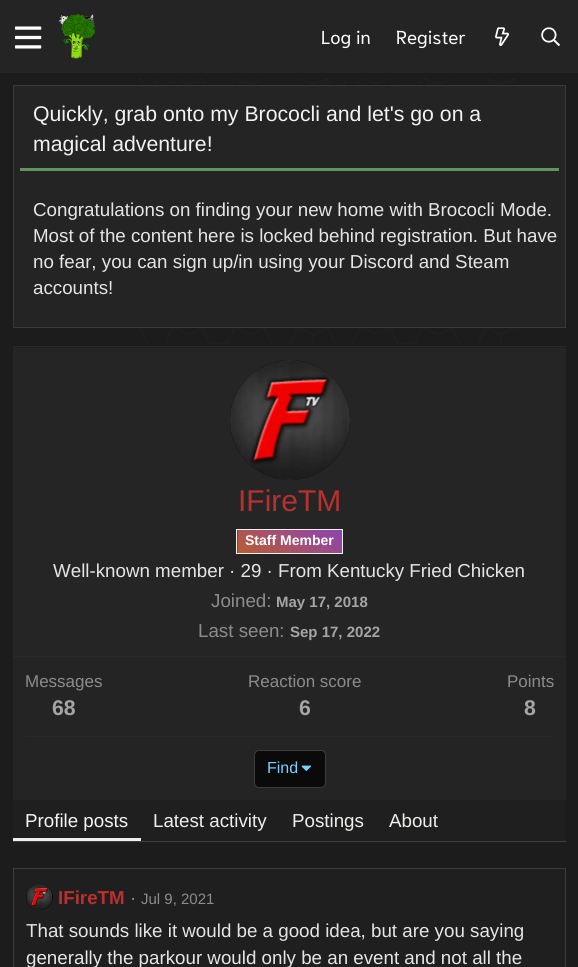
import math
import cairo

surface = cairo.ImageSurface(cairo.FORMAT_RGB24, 578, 967)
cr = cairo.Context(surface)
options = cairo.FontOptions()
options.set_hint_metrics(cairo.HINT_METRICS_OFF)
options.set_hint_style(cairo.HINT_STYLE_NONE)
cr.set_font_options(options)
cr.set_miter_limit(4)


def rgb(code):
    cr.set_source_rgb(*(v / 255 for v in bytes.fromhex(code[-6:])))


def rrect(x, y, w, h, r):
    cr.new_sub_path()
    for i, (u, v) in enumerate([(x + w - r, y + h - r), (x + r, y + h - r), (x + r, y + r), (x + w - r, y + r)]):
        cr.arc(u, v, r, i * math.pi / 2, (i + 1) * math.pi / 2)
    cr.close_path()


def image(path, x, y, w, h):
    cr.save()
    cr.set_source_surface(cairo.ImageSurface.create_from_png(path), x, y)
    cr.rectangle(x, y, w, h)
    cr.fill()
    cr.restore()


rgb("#1c1c1c")
cr.paint()
image("img/1.png", 139, 78, 377, 268)
rgb("#242424")
cr.rectangle(0, 0, 578, 73)
cr.fill()
image("img/2.png", 15, 26, 27, 23)
image("img/3.png", 58, 14, 37, 45)
image("img/4.png", 495, 27, 15, 20)
image("img/5.png", 541, 27, 19, 19)
cr.rectangle(13.5, 85.5, 552, 242)
cr.fill_preserve()
rgb("#393939")
cr.set_line_width(1)
cr.stroke()
for x, y, w, h, color in [
    (20, 168, 539, 3, "#629460"),
    (13, 347, 553, 496, "#1f1f1f"),
    (13, 346, 553, 1, "#292929"),
    (13, 841, 553, 1, "#3d3d3d"),
    (13, 348, 553, 310, "#262526"),
    (13, 656, 553, 1, "#292929"),
]:
    rgb(color)
    cr.rectangle(x, y, w, h)
    cr.fill()
rgb("#0a0a0a")
cr.arc(290, 420, 60, 0, 2 * math.pi)
cr.fill()
image("img/6.png", 230, 360, 120, 120)
gradient = cairo.LinearGradient(-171, 294, -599, 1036)
gradient.add_color_stop_rgba(0, 0.561, 0.204, 0.227, 1)
gradient.add_color_stop_rgba(0.11, 0.149, 0.651, 0.357, 1)
gradient.add_color_stop_rgba(0.22, 0.11, 0.525, 0.933, 1)
gradient.add_color_stop_rgba(0.33, 1, 0.745, 0.11, 1)
gradient.add_color_stop_rgba(0.44, 0.09, 0.376, 0.576, 1)
gradient.add_color_stop_rgba(0.56, 0.478, 0.949, 0.427, 1)
gradient.add_color_stop_rgba(0.67, 0.557, 0.267, 0.678, 1)
gradient.add_color_stop_rgba(0.78, 0.8, 0.4, 0, 1)
gradient.add_color_stop_rgba(0.89, 0.812, 0.302, 0.208, 1)
gradient.add_color_stop_rgba(1, 0.878, 0.933, 0.933, 1)
cr.set_source(gradient)
cr.rectangle(237, 530, 1, 24)
cr.fill()
gradient = cairo.LinearGradient(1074, 294, 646, 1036)
gradient.add_color_stop_rgba(0, 0.561, 0.204, 0.227, 1)
gradient.add_color_stop_rgba(0.11, 0.149, 0.651, 0.357, 1)
gradient.add_color_stop_rgba(0.22, 0.11, 0.525, 0.933, 1)
gradient.add_color_stop_rgba(0.33, 1, 0.745, 0.11, 1)
gradient.add_color_stop_rgba(0.44, 0.09, 0.376, 0.576, 1)
gradient.add_color_stop_rgba(0.56, 0.478, 0.949, 0.427, 1)
gradient.add_color_stop_rgba(0.67, 0.557, 0.267, 0.678, 1)
gradient.add_color_stop_rgba(0.78, 0.8, 0.4, 0, 1)
gradient.add_color_stop_rgba(0.89, 0.812, 0.302, 0.208, 1)
gradient.add_color_stop_rgba(1, 0.878, 0.933, 0.933, 1)
cr.set_source(gradient)
cr.rectangle(238, 530, 104, 23)
cr.fill()
cr.rectangle(236.5, 529.5, 106, 24)
rgb("#f2f4f4")
cr.stroke()
rgb("#242424")
cr.rectangle(13, 658, 553, 142)
cr.fill()
rgb("#292929")
cr.rectangle(25, 736, 529, 1)
cr.fill()
rgb("#0a0a0a")
rrect(254.5, 750.5, 71, 37, 4.5)
cr.fill_preserve()
rgb("#3d3d3d")
cr.stroke()
image("img/7.png", 301, 765, 10, 6)
rgb("#edf0ea")
cr.rectangle(13, 838, 128, 3)
cr.fill()
rgb("#1f1f1f")
cr.rectangle(13.5, 868.5, 552, 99)
cr.fill_preserve()
rgb("#3d3d3d")
cr.stroke()
rgb("#0a0a0a")
rrect(26, 884, 27, 26, 13)
cr.fill()
image("img/8.png", 26, 884, 26, 26)
cr.select_font_face("Niramit")
cr.set_font_size(18.75)
rgb("#ffffff")
cr.move_to(321, 44)
cr.show_text("Log in")
cr.move_to(396, 44)
cr.show_text("Register")
cr.select_font_face("Liberation Sans")
cr.set_font_size(21.25)
rgb("#eff3f6")
cr.move_to(33, 121)
cr.show_text("Quickly, grab onto my Brococli and let's go on a")
cr.move_to(33, 151)
cr.show_text("magical adventure!")
cr.set_font_size(18.75)
rgb("#e6e5e5")
for x, y, s in [
    (33, 216, "Congratulations on finding your new home with Brococli Mode."),
    (33, 242, "Most of the content here is locked behind registration. But have"),
    (33, 268, "no fear, you can sign up/in using your Discord and Steam"),
    (33, 294, "accounts!"),
]:
    cr.move_to(x, y)
    cr.show_text(s)
cr.set_font_size(30)
rgb("#b8312f")
cr.move_to(238, 511)
cr.show_text("IFireTM")
cr.select_font_face("Liberation Sans", cairo.FONT_SLANT_NORMAL, cairo.FONT_WEIGHT_BOLD)
cr.set_font_size(14)
rgb("#ffffff")
cr.move_to(245, 545)
cr.show_text("Staff Member")
cr.select_font_face("Liberation Sans")
cr.set_font_size(18.75)
rgb("#e6e5e5")
cr.move_to(53, 577)
cr.show_text("Well-known member · 29 · From Kentucky Fried Chicken")
rgb("#8c8c8c")
cr.move_to(211, 607)
cr.show_text("Joined:")
cr.select_font_face("Liberation Sans", cairo.FONT_SLANT_NORMAL, cairo.FONT_WEIGHT_BOLD)
cr.set_font_size(15)
rgb("#a5a5a5")
cr.move_to(276, 607)
cr.show_text("May 17, 2018")
cr.select_font_face("Liberation Sans")
cr.set_font_size(18.75)
rgb("#8c8c8c")
cr.move_to(198, 637)
cr.show_text("Last seen:")
cr.select_font_face("Liberation Sans", cairo.FONT_SLANT_NORMAL, cairo.FONT_WEIGHT_BOLD)
cr.set_font_size(15)
rgb("#a5a5a5")
cr.move_to(290, 637)
cr.show_text("Sep 17, 2022")
cr.select_font_face("Liberation Sans")
cr.set_font_size(17)
rgb("#8c8c8c")
cr.move_to(25, 687)
cr.show_text("Messages")
cr.select_font_face("Liberation Sans", cairo.FONT_SLANT_NORMAL, cairo.FONT_WEIGHT_BOLD)
cr.set_font_size(21.25)
rgb("#a5a5a5")
cr.move_to(52, 715)
cr.show_text("68")
cr.select_font_face("Liberation Sans")
cr.set_font_size(17)
rgb("#8c8c8c")
cr.move_to(248, 687)
cr.show_text("Reaction score")
cr.select_font_face("Liberation Sans", cairo.FONT_SLANT_NORMAL, cairo.FONT_WEIGHT_BOLD)
cr.set_font_size(21.25)
rgb("#a5a5a5")
cr.move_to(299, 715)
cr.show_text("6")
cr.select_font_face("Liberation Sans")
cr.set_font_size(17)
rgb("#8c8c8c")
cr.move_to(507, 687)
cr.show_text("Points")
cr.select_font_face("Liberation Sans", cairo.FONT_SLANT_NORMAL, cairo.FONT_WEIGHT_BOLD)
cr.set_font_size(21.25)
rgb("#a5a5a5")
cr.move_to(524, 715)
cr.show_text("8")
cr.select_font_face("Liberation Sans")
cr.set_font_size(16)
rgb("#77d2ff")
cr.move_to(267, 773)
cr.show_text("Find")
cr.set_font_size(18.75)
rgb("#f8f4f8")
cr.move_to(25, 827)
cr.show_text("Profile posts")
rgb("#edf0ea")
for x, y, s in [
    (153, 827, "Latest activity"),
    (292, 827, "Postings"),
    (389, 827, "About"),
]:
    cr.move_to(x, y)
    cr.show_text(s)
cr.select_font_face("Liberation Sans", cairo.FONT_SLANT_NORMAL, cairo.FONT_WEIGHT_BOLD)
rgb("#b8312f")
cr.move_to(58, 904)
cr.show_text("IFireTM")
cr.select_font_face("Liberation Sans")
rgb("#8c8c8c")
cr.move_to(130, 904)
cr.show_text("·")
cr.set_font_size(15)
cr.move_to(141, 904)
cr.show_text("Jul 9, 2021")
cr.set_font_size(18.75)
rgb("#e6e5e5")
cr.move_to(26, 937)
cr.show_text("That sounds like it would be a good idea, but are you saying")
cr.move_to(26, 964)
cr.show_text("generally the parkour would only be an event and not all the")
surface.write_to_png("page.png")
